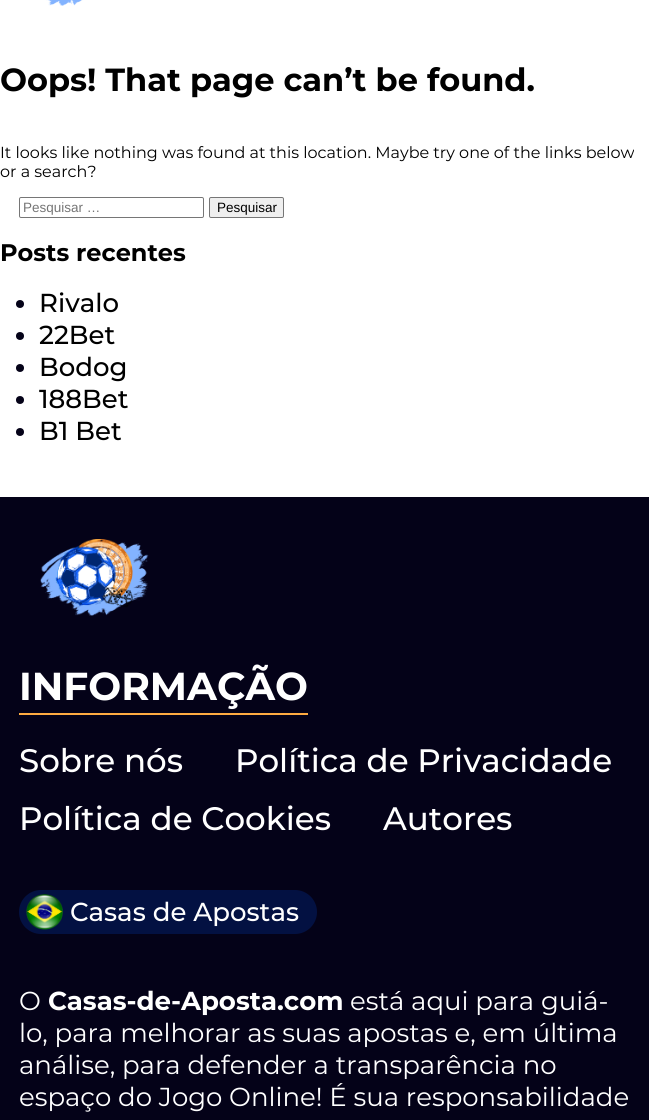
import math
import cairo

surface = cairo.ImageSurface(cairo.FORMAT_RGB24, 649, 1120)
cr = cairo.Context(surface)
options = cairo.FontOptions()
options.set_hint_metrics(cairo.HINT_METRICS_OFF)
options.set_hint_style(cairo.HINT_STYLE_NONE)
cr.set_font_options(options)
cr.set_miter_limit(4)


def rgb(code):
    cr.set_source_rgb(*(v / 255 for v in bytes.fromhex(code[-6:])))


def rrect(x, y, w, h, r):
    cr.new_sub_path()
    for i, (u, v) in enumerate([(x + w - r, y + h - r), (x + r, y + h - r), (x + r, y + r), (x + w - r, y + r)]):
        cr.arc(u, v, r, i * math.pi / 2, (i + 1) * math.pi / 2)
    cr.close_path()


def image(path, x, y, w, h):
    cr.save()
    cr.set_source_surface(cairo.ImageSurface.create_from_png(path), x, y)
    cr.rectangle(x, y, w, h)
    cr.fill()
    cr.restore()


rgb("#ffffff")
cr.paint()
image("img/1.png", 46, 0, 37, 6)
rrect(19.5, 197.5, 184, 20, 1.5)
rgb("#767676")
cr.set_line_width(1)
cr.stroke()
rgb("#efefef")
rrect(209.5, 197.5, 74, 20, 1.5)
cr.fill_preserve()
rgb("#767676")
cr.stroke()
rgb("#040218")
cr.arc(20, 304, 4, 0, 2 * math.pi)
cr.fill()
cr.arc(20, 336, 4, 0, 2 * math.pi)
cr.fill()
cr.arc(20, 368, 4, 0, 2 * math.pi)
cr.fill()
cr.arc(20, 400, 4, 0, 2 * math.pi)
cr.fill()
cr.arc(20, 432, 4, 0, 2 * math.pi)
cr.fill()
cr.rectangle(0, 497, 649, 623)
cr.fill()
image("img/2.png", 40, 539, 109, 77)
rgb("#feab41")
cr.rectangle(19, 713, 289, 2)
cr.fill()
rgb("#031142")
rrect(19, 890, 298, 44, 22)
cr.fill()
image("img/3.png", 26, 894, 37, 36)
cr.select_font_face("Montserrat", cairo.FONT_SLANT_NORMAL, cairo.FONT_WEIGHT_BOLD)
cr.set_font_size(32)
rgb("#000000")
cr.move_to(0, 91)
cr.show_text("Oops! That page can’t be found.")
cr.select_font_face("Montserrat")
cr.set_font_size(16)
cr.move_to(0, 158)
cr.show_text("It looks like nothing was found at this location. Maybe try one of the links below")
cr.move_to(0, 177)
cr.show_text("or a search?")
cr.select_font_face("Liberation Sans")
cr.set_font_size(13.5)
rgb("#757575")
cr.move_to(23, 212)
cr.show_text("Pesquisar …")
rgb("#000000")
cr.move_to(217, 212)
cr.show_text("Pesquisar")
cr.select_font_face("Montserrat", cairo.FONT_SLANT_NORMAL, cairo.FONT_WEIGHT_BOLD)
cr.set_font_size(24)
cr.move_to(0, 261)
cr.show_text("Posts recentes")
cr.select_font_face("Montserrat Medium")
cr.set_font_size(26)
for x, y, s in [
    (39, 312, "Rivalo"),
    (39, 344, "22Bet"),
    (39, 376, "Bodog"),
    (39, 408, "188Bet"),
    (39, 440, "B1 Bet"),
]:
    cr.move_to(x, y)
    cr.show_text(s)
cr.select_font_face("Montserrat", cairo.FONT_SLANT_NORMAL, cairo.FONT_WEIGHT_BOLD)
cr.set_font_size(39)
rgb("#ffffff")
cr.move_to(19, 700)
cr.show_text("INFORMAÇÃO")
cr.select_font_face("Montserrat Medium")
cr.set_font_size(32.5)
for x, y, s in [
    (19, 772, "Sobre nós"),
    (235, 772, "Política de Privacidade"),
    (19, 830, "Política de Cookies"),
    (383, 830, "Autores"),
]:
    cr.move_to(x, y)
    cr.show_text(s)
cr.set_font_size(26)
cr.move_to(70, 921)
cr.show_text("Casas de Apostas")
cr.select_font_face("Montserrat")
cr.move_to(19, 1010)
cr.show_text("O")
cr.select_font_face("Montserrat", cairo.FONT_SLANT_NORMAL, cairo.FONT_WEIGHT_BOLD)
cr.move_to(48, 1010)
cr.show_text("Casas-de-Aposta.com")
cr.select_font_face("Montserrat")
for x, y, s in [
    (350, 1010, "está aqui para guiá-"),
    (19, 1042, "lo, para melhorar as suas apostas e, em última"),
    (19, 1074, "análise, para defender a transparência no"),
    (19, 1106, "espaço do Jogo Online! É sua responsabilidade"),
]:
    cr.move_to(x, y)
    cr.show_text(s)
surface.write_to_png("page.png")
